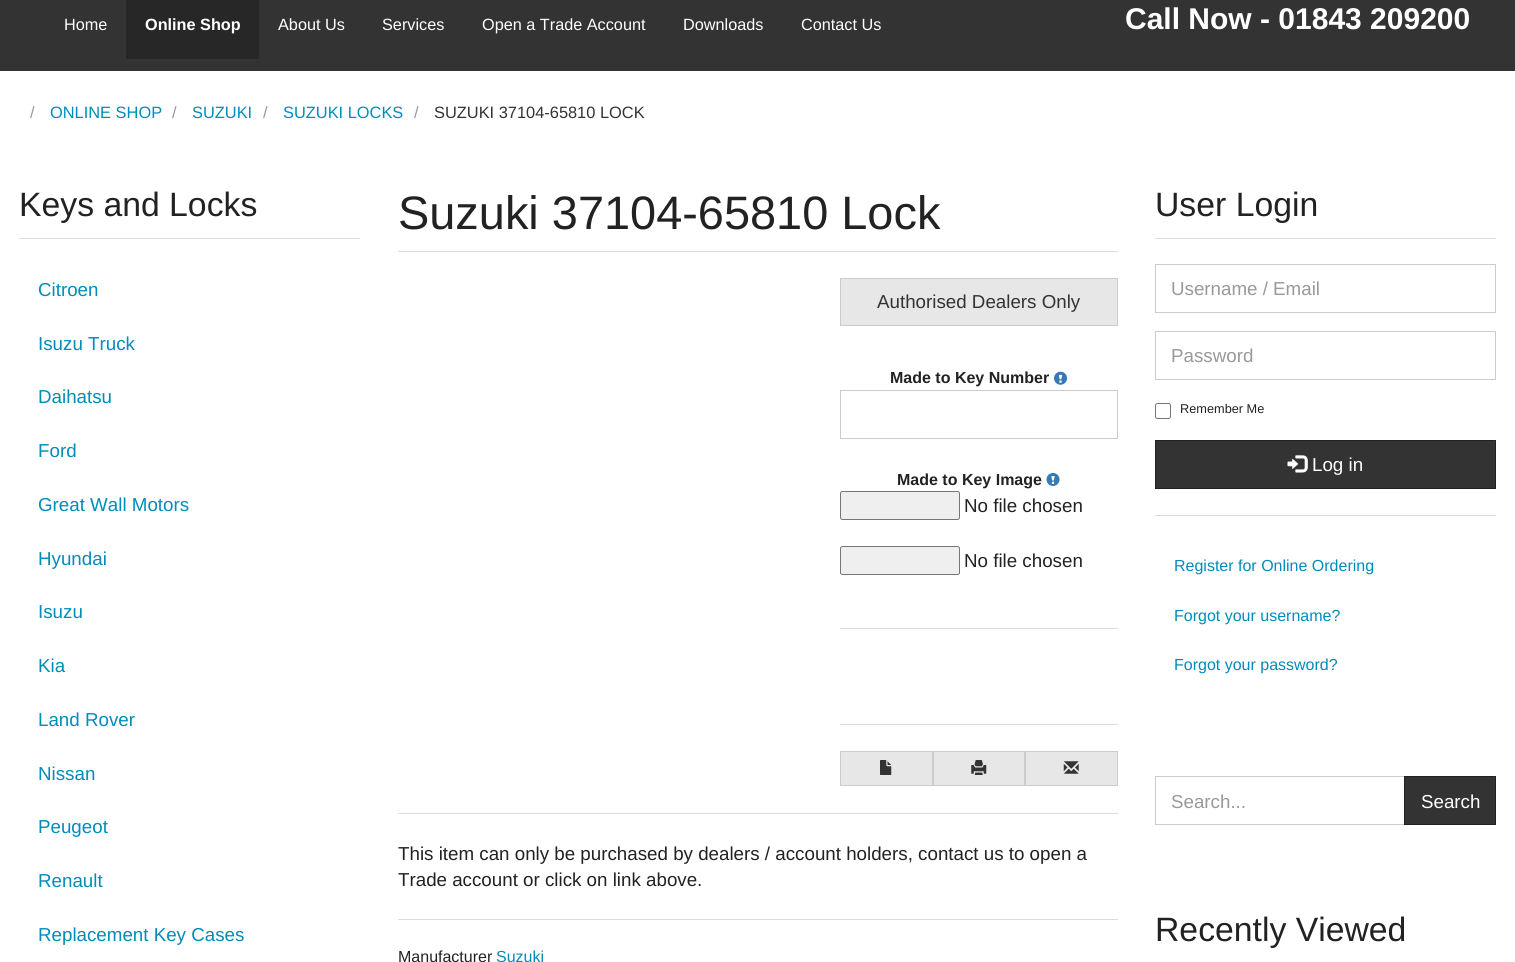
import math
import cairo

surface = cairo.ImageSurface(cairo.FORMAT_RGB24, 1515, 962)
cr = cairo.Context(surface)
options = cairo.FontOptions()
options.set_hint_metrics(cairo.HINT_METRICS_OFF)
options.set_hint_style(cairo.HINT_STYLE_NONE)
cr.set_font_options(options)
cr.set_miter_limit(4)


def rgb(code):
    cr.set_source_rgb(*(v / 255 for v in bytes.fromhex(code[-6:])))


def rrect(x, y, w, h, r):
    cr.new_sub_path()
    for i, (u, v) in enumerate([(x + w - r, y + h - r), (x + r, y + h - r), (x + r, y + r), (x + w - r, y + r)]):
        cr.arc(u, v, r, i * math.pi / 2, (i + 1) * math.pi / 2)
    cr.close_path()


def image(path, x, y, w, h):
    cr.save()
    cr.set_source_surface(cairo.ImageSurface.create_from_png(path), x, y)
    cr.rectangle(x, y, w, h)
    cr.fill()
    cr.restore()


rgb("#ffffff")
cr.paint()
for x, y, w, h, color in [
    (0, 0, 1515, 71, "#333333"),
    (126, 0, 133, 59, "#272727"),
    (19, 238, 341, 1, "#dddddd"),
    (398, 251, 720, 1, "#dddddd"),
]:
    rgb(color)
    cr.rectangle(x, y, w, h)
    cr.fill()
rgb("#e7e7e7")
cr.rectangle(840.5, 278.5, 277, 47)
cr.fill_preserve()
rgb("#cccccc")
cr.set_line_width(1)
cr.stroke()
image("img/1.png", 1054, 371, 13, 14)
cr.rectangle(840.5, 390.5, 277, 48)
cr.stroke()
image("img/2.png", 1046, 473, 14, 13)
rgb("#efefef")
rrect(840.5, 491.5, 119, 28, 2)
cr.fill_preserve()
rgb("#767676")
cr.stroke()
rgb("#efefef")
rrect(840.5, 546.5, 119, 28, 2)
cr.fill_preserve()
rgb("#767676")
cr.stroke()
rgb("#dddddd")
cr.rectangle(840, 628, 278, 1)
cr.fill()
cr.rectangle(840, 724, 278, 1)
cr.fill()
rgb("#e7e7e7")
cr.rectangle(840.5, 751.5, 92, 34)
cr.fill_preserve()
rgb("#cccccc")
cr.stroke()
image("img/3.png", 880, 760, 12, 15)
rgb("#e7e7e7")
cr.rectangle(933.5, 751.5, 91, 34)
cr.fill_preserve()
rgb("#cccccc")
cr.stroke()
image("img/4.png", 971, 760, 16, 15)
rgb("#e7e7e7")
cr.rectangle(1025.5, 751.5, 92, 34)
cr.fill_preserve()
rgb("#cccccc")
cr.stroke()
image("img/5.png", 1063, 761, 16, 13)
for x, y, w, h, color in [
    (398, 813, 720, 1, "#dddddd"),
    (398, 919, 720, 1, "#dddddd"),
    (1155, 238, 341, 1, "#dddddd"),
]:
    rgb(color)
    cr.rectangle(x, y, w, h)
    cr.fill()
cr.rectangle(1155.5, 264.5, 340, 48)
rgb("#cccccc")
cr.stroke()
cr.rectangle(1155.5, 331.5, 340, 48)
cr.stroke()
rrect(1155.5, 403.5, 15, 15, 2)
rgb("#767676")
cr.stroke()
rgb("#333333")
cr.rectangle(1155.5, 440.5, 340, 48)
cr.fill_preserve()
rgb("#212121")
cr.stroke()
image("img/6.png", 1287, 455, 21, 18)
rgb("#dddddd")
cr.rectangle(1155, 515, 341, 1)
cr.fill()
cr.rectangle(1155.5, 776.5, 249, 48)
rgb("#cccccc")
cr.stroke()
rgb("#333333")
cr.rectangle(1404.5, 776.5, 91, 48)
cr.fill_preserve()
rgb("#212121")
cr.stroke()
cr.select_font_face("Liberation Sans")
cr.set_font_size(16.25)
rgb("#ffffff")
cr.move_to(64, 30)
cr.show_text("Home")
cr.select_font_face("Liberation Sans", cairo.FONT_SLANT_NORMAL, cairo.FONT_WEIGHT_BOLD)
cr.move_to(145, 30)
cr.show_text("Online Shop")
cr.select_font_face("Liberation Sans")
for x, y, s in [
    (278, 30, "About Us"),
    (382, 30, "Services"),
    (482, 30, "Open a Trade Account"),
    (683, 30, "Downloads"),
    (801, 30, "Contact Us"),
]:
    cr.move_to(x, y)
    cr.show_text(s)
cr.select_font_face("Liberation Sans", cairo.FONT_SLANT_NORMAL, cairo.FONT_WEIGHT_BOLD)
cr.set_font_size(30)
cr.move_to(1125, 29)
cr.show_text("Call Now - 01843 209200")
cr.select_font_face("Liberation Sans")
cr.set_font_size(16.4)
rgb("#999999")
cr.move_to(30, 118)
cr.show_text("/")
rgb("#008cba")
cr.move_to(50, 118)
cr.show_text("ONLINE SHOP")
rgb("#999999")
cr.move_to(172, 118)
cr.show_text("/")
rgb("#008cba")
cr.move_to(192, 118)
cr.show_text("SUZUKI")
rgb("#999999")
cr.move_to(263, 118)
cr.show_text("/")
rgb("#008cba")
cr.move_to(283, 118)
cr.show_text("SUZUKI LOCKS")
rgb("#999999")
cr.move_to(414, 118)
cr.show_text("/")
rgb("#333333")
cr.move_to(434, 118)
cr.show_text("SUZUKI 37104-65810 LOCK")
cr.set_font_size(33.75)
rgb("#222222")
cr.move_to(19, 216)
cr.show_text("Keys and Locks")
cr.set_font_size(18.75)
rgb("#008cba")
for x, y, s in [
    (38, 296, "Citroen"),
    (38, 350, "Isuzu Truck"),
    (38, 403, "Daihatsu"),
    (38, 457, "Ford"),
    (38, 511, "Great Wall Motors"),
    (38, 565, "Hyundai"),
    (38, 618, "Isuzu"),
    (38, 672, "Kia"),
    (38, 726, "Land Rover"),
    (38, 780, "Nissan"),
    (38, 833, "Peugeot"),
    (38, 887, "Renault"),
    (38, 941, "Replacement Key Cases"),
]:
    cr.move_to(x, y)
    cr.show_text(s)
cr.set_font_size(46.9)
rgb("#222222")
cr.move_to(398, 229)
cr.show_text("Suzuki 37104-65810 Lock")
cr.set_font_size(18.75)
rgb("#333333")
cr.move_to(877, 308)
cr.show_text("Authorised Dealers Only")
cr.select_font_face("Liberation Sans", cairo.FONT_SLANT_NORMAL, cairo.FONT_WEIGHT_BOLD)
cr.set_font_size(16)
rgb("#222222")
cr.move_to(890, 383)
cr.show_text("Made to Key Number")
cr.move_to(897, 485)
cr.show_text("Made to Key Image")
cr.select_font_face("Liberation Sans")
cr.set_font_size(18.75)
for x, y, s in [
    (964, 512, "No file chosen"),
    (964, 567, "No file chosen"),
    (398, 860, "This item can only be purchased by dealers / account holders, contact us to open a"),
    (398, 886, "Trade account or click on link above."),
]:
    cr.move_to(x, y)
    cr.show_text(s)
cr.set_font_size(16)
cr.move_to(398, 962)
cr.show_text("Manufacturer")
rgb("#008cba")
cr.move_to(496, 962)
cr.show_text("Suzuki")
cr.set_font_size(33.75)
rgb("#222222")
cr.move_to(1155, 216)
cr.show_text("User Login")
cr.set_font_size(18.75)
rgb("#999999")
cr.move_to(1171, 295)
cr.show_text("Username / Email")
cr.move_to(1171, 362)
cr.show_text("Password")
cr.set_font_size(12.75)
rgb("#222222")
cr.move_to(1180, 413)
cr.show_text("Remember Me")
cr.set_font_size(18.75)
rgb("#ffffff")
cr.move_to(1312, 471)
cr.show_text("Log in")
cr.set_font_size(16)
rgb("#008cba")
for x, y, s in [
    (1174, 571, "Register for Online Ordering"),
    (1174, 621, "Forgot your username?"),
    (1174, 670, "Forgot your password?"),
]:
    cr.move_to(x, y)
    cr.show_text(s)
cr.set_font_size(18.75)
rgb("#999999")
cr.move_to(1171, 808)
cr.show_text("Search...")
rgb("#ffffff")
cr.move_to(1421, 808)
cr.show_text("Search")
cr.set_font_size(33.75)
rgb("#222222")
cr.move_to(1155, 941)
cr.show_text("Recently Viewed")
surface.write_to_png("page.png")
